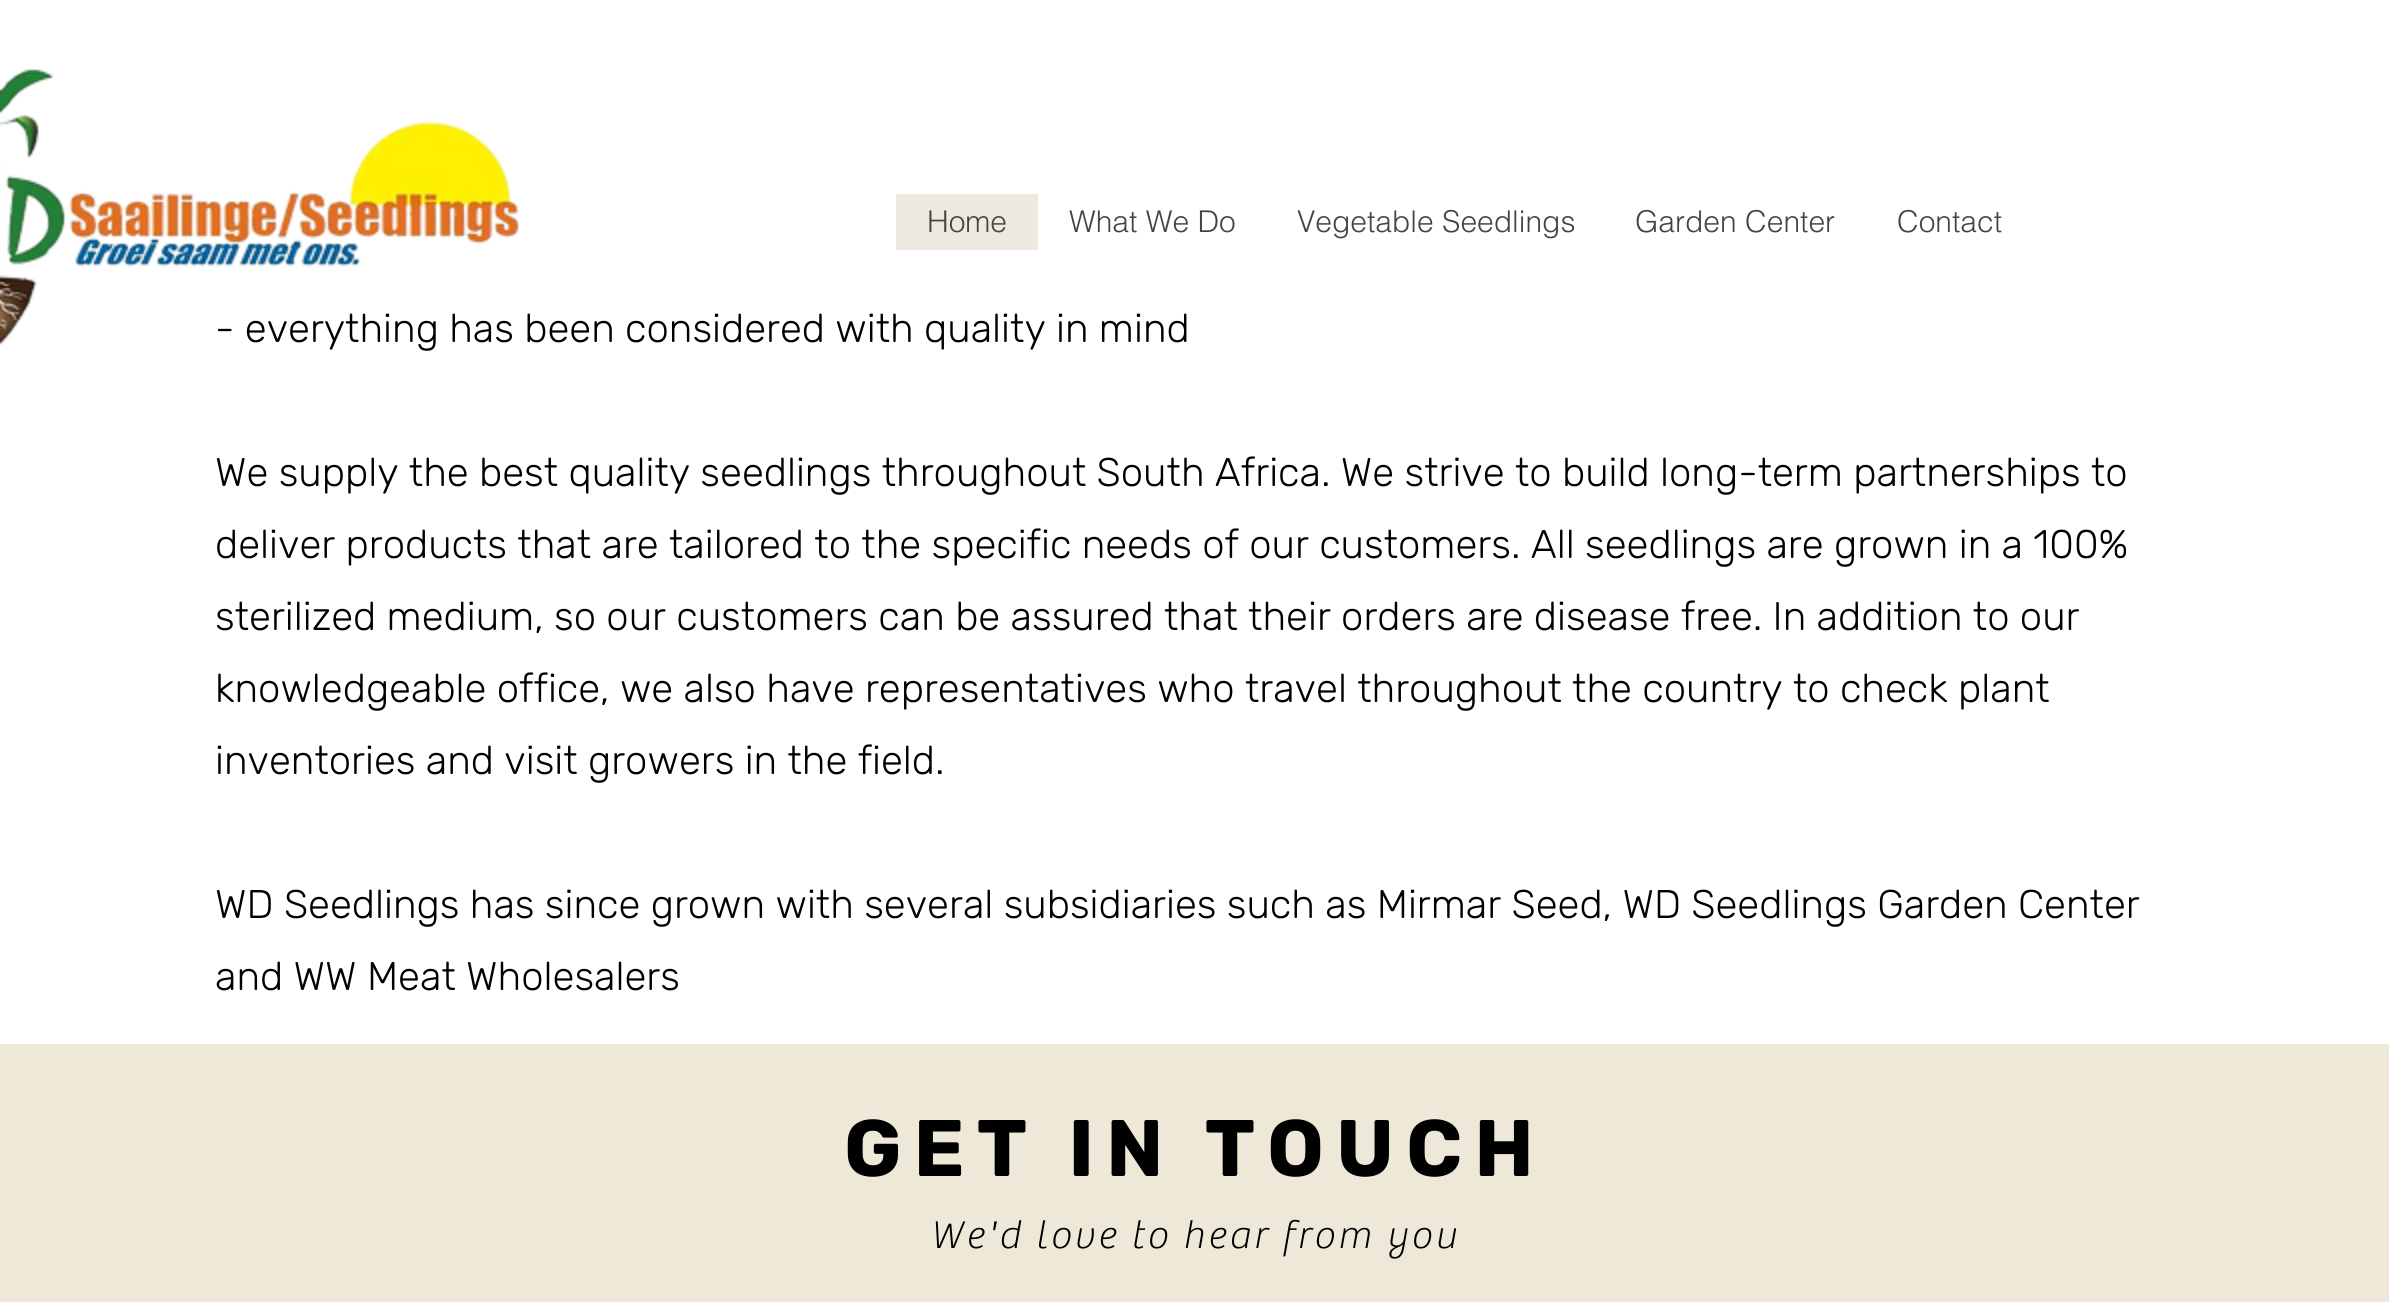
import math
import cairo

surface = cairo.ImageSurface(cairo.FORMAT_RGB24, 2389, 1302)
cr = cairo.Context(surface)
options = cairo.FontOptions()
options.set_hint_metrics(cairo.HINT_METRICS_OFF)
options.set_hint_style(cairo.HINT_STYLE_NONE)
cr.set_font_options(options)
cr.set_miter_limit(4)


def rgb(code):
    cr.set_source_rgb(*(v / 255 for v in bytes.fromhex(code[-6:])))


def tracked(x, y, s, letter, word):
    cr.move_to(x, y)
    for ch in s:
        cr.show_text(ch)
        cr.rel_move_to(letter + word * (ch == ' '), 0)


def image(path, x, y, w, h):
    cr.save()
    cr.set_source_surface(cairo.ImageSurface.create_from_png(path), x, y)
    cr.rectangle(x, y, w, h)
    cr.fill()
    cr.restore()


rgb("#ffffff")
cr.paint()
rgb("#ede9e1")
cr.rectangle(896, 194, 142, 56)
cr.fill()
rgb("#eee8d8")
cr.rectangle(0, 1044, 2389, 258)
cr.fill()
cr.select_font_face("helvetica Light")
cr.set_font_size(30)
rgb("#444444")
for x, y, s in [
    (927, 232, "Home"),
    (1069, 232, "What We Do"),
    (1297, 232, "Vegetable Seedlings"),
    (1635, 232, "Garden Center"),
    (1897, 232, "Contact"),
]:
    cr.move_to(x, y)
    cr.show_text(s)
cr.select_font_face("Rubik Light")
cr.set_font_size(40)
rgb("#000000")
cr.move_to(215, 342)
cr.show_text("- everything has been considered with quality in mind")
image("img/1.png", 0, 68, 520, 277)
for x, y, s in [
    (215, 486, "We supply the best quality seedlings throughout South Africa. We strive to build long-term partnerships to"),
    (215, 558, "deliver products that are tailored to the specific needs of our customers. All seedlings are grown in a 100%"),
    (215, 630, "sterilized medium, so our customers can be assured that their orders are disease free. In addition to our"),
    (215, 702, "knowledgeable office, we also have representatives who travel throughout the country to check plant"),
    (215, 774, "inventories and visit growers in the field."),
    (215, 918, "WD Seedlings has since grown with several subsidiaries such as Mirmar Seed, WD Seedlings Garden Center"),
    (215, 990, "and WW Meat Wholesalers"),
]:
    cr.move_to(x, y)
    cr.show_text(s)
cr.select_font_face("Rubik", cairo.FONT_SLANT_NORMAL, cairo.FONT_WEIGHT_BOLD)
cr.set_font_size(80)
tracked(844, 1176, "GET IN TOUCH", 12, 0)
cr.select_font_face("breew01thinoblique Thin")
cr.set_font_size(40)
tracked(930, 1248, "We'd love to hear from you", 3.2, 0)
surface.write_to_png("page.png")
